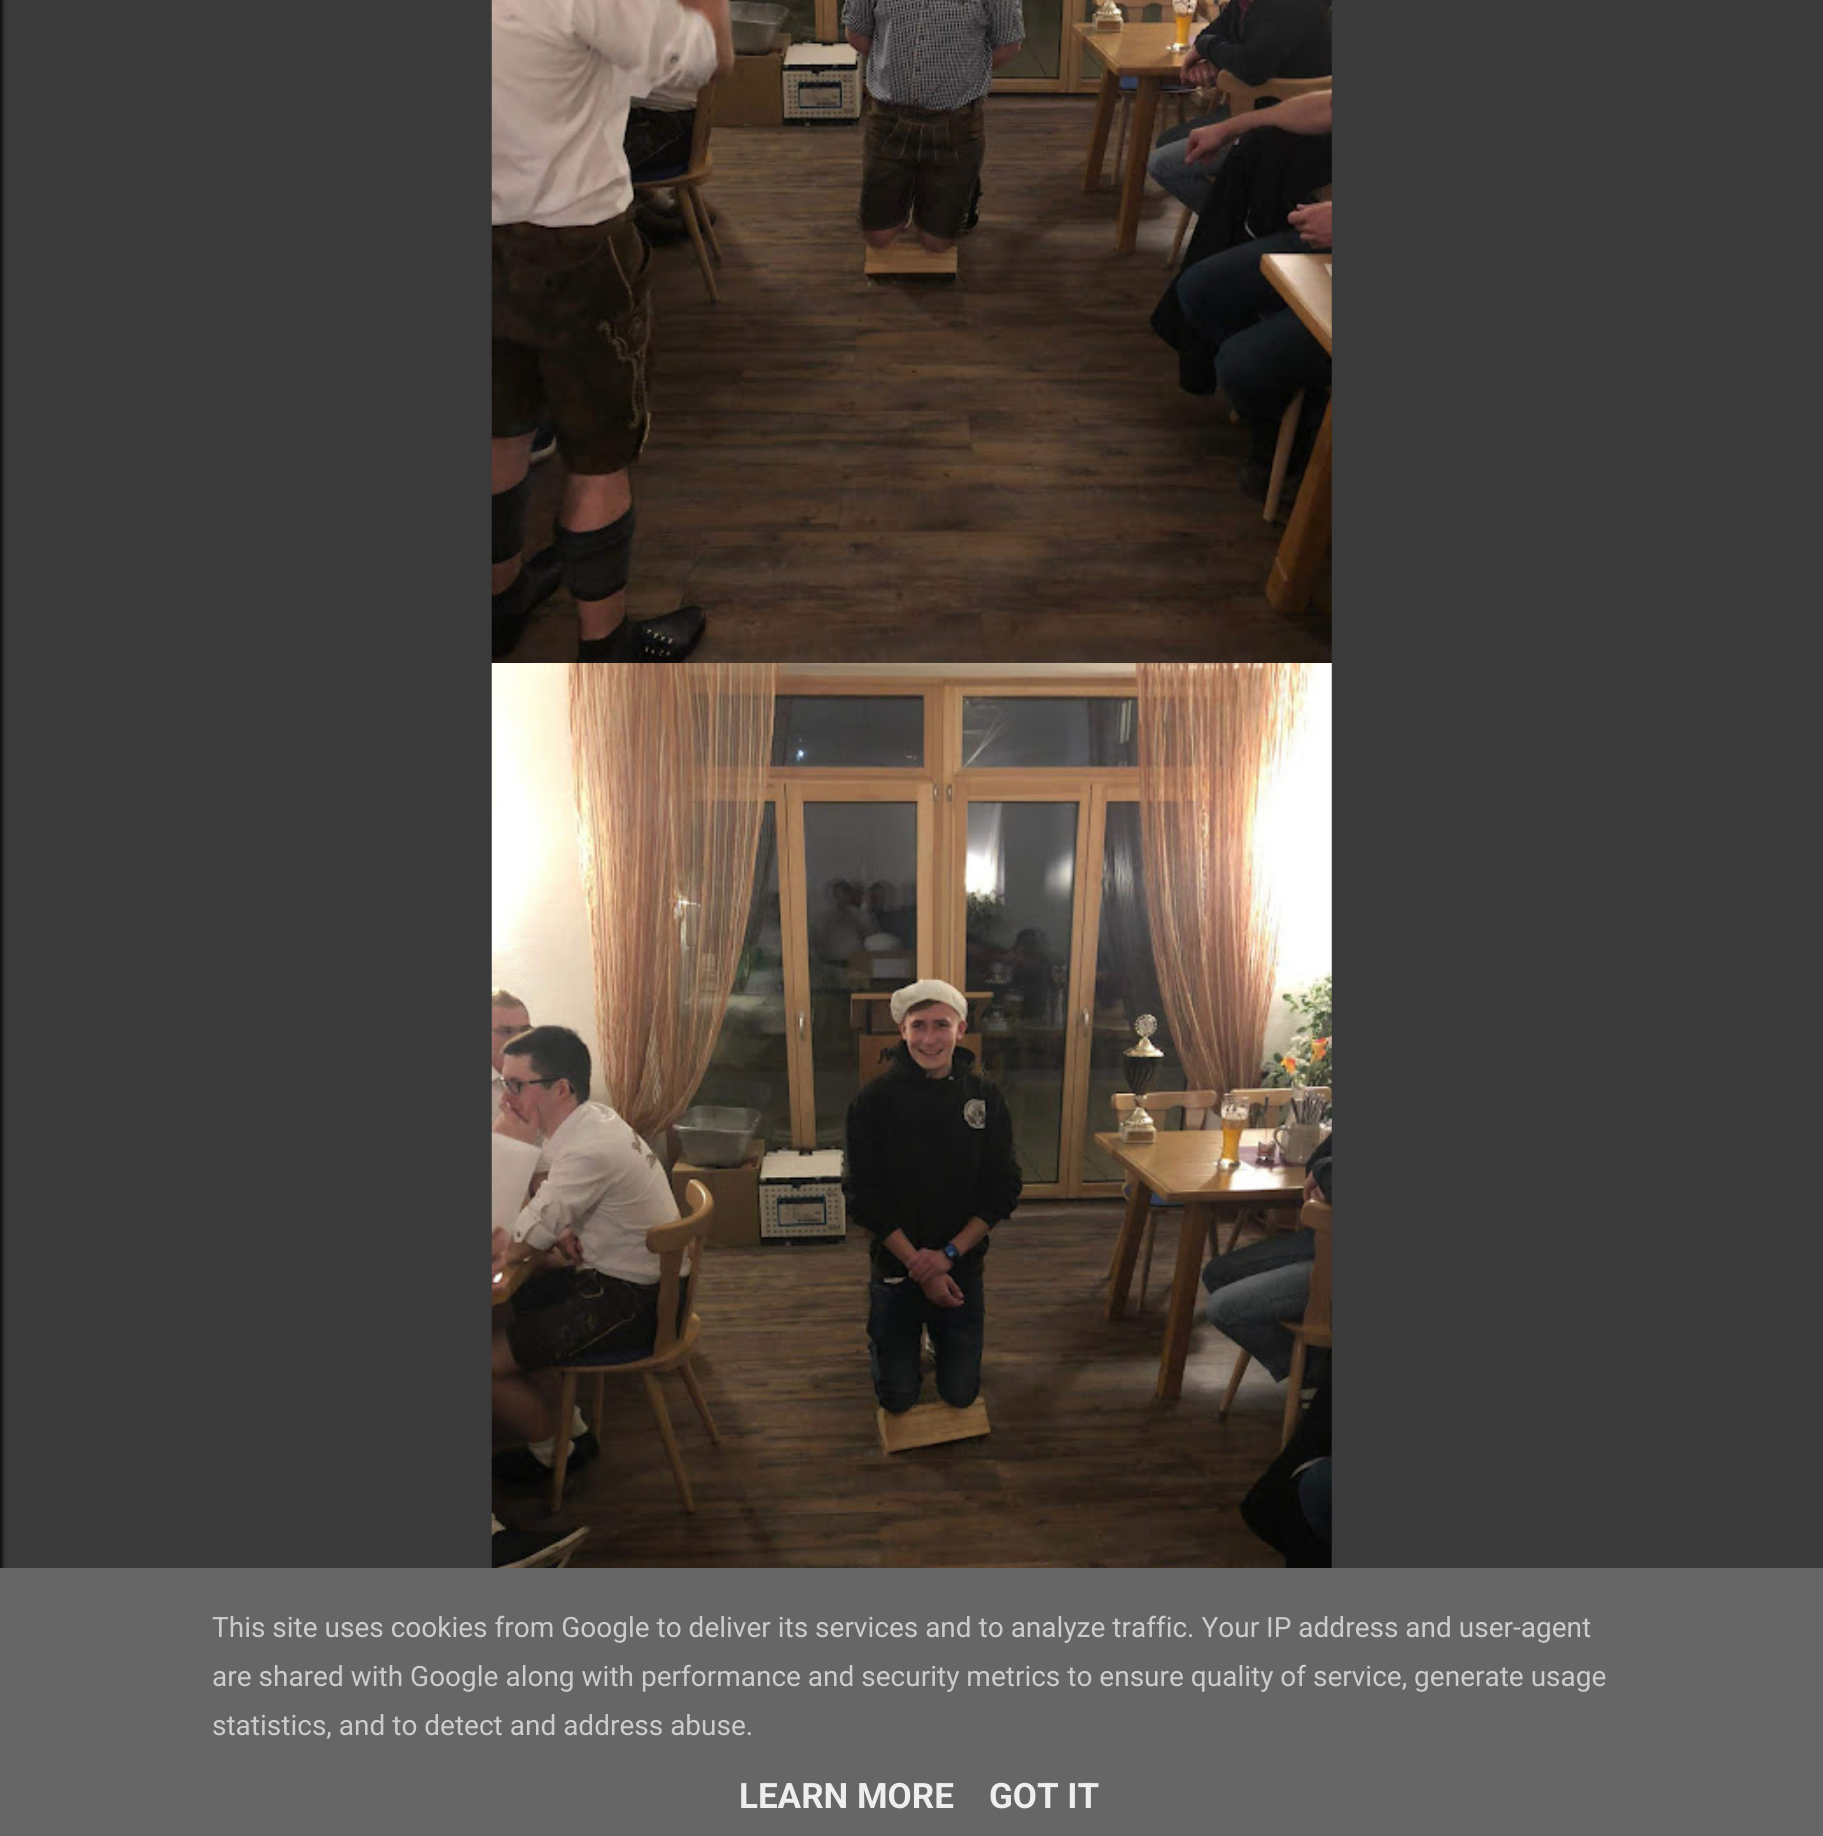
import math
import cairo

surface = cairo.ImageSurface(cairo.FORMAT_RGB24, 1823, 1836)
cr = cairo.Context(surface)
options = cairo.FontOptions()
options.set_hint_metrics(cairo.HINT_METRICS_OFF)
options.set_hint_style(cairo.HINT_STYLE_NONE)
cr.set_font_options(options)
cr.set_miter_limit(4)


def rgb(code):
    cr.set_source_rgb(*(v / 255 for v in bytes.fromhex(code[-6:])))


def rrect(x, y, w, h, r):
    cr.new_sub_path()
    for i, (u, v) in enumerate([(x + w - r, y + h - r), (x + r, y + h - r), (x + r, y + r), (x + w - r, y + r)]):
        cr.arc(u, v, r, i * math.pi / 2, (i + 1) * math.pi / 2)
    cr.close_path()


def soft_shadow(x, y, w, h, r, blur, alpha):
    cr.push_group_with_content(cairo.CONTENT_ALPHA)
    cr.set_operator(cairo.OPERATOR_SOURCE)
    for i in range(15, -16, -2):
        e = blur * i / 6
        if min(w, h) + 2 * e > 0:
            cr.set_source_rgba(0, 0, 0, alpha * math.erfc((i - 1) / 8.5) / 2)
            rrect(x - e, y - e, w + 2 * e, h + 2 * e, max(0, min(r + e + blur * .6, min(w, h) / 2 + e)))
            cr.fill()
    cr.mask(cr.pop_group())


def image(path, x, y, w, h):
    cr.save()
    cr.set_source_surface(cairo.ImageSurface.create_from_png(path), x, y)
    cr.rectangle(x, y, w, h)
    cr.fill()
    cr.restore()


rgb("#3a3a3a")
cr.paint()
rgb("#000000")
soft_shadow(-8, 0, 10, 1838, 0, 2.5, 1)
image("img/1.png", 491, 0, 841, 663)
image("img/2.png", 491, 663, 841, 905)
rgb("#666666")
cr.rectangle(0, 1568, 1823, 268)
cr.fill()
cr.select_font_face("Roboto")
cr.set_font_size(28)
rgb("#cccccc")
for x, y, s in [
    (212, 1637, "This site uses cookies from Google to deliver its services and to analyze traffic. Your IP address and user-agent"),
    (212, 1686, "are shared with Google along with performance and security metrics to ensure quality of service, generate usage"),
    (212, 1735, "statistics, and to detect and address abuse."),
]:
    cr.move_to(x, y)
    cr.show_text(s)
cr.select_font_face("Roboto", cairo.FONT_SLANT_NORMAL, cairo.FONT_WEIGHT_BOLD)
cr.set_font_size(35)
rgb("#eeeeee")
cr.move_to(739, 1808)
cr.show_text("LEARN MORE")
cr.move_to(989, 1808)
cr.show_text("GOT IT")
surface.write_to_png("page.png")
